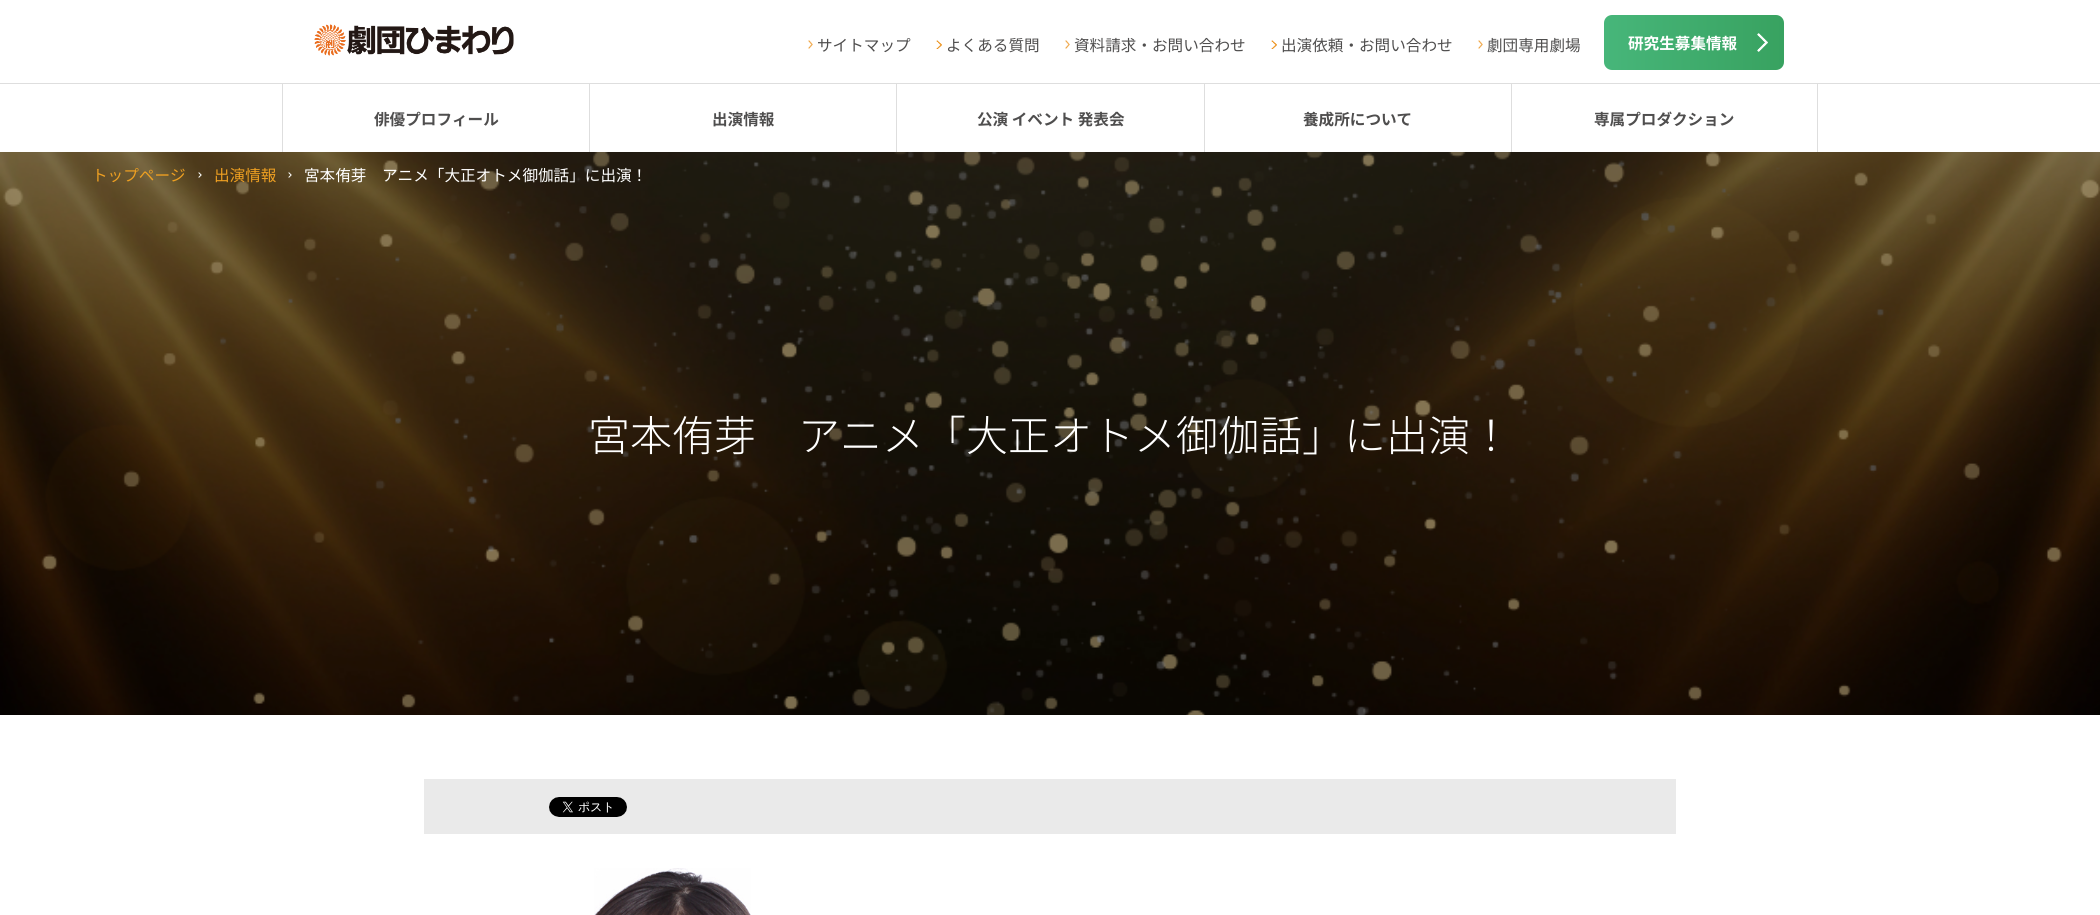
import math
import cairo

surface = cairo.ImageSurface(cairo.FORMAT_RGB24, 2100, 915)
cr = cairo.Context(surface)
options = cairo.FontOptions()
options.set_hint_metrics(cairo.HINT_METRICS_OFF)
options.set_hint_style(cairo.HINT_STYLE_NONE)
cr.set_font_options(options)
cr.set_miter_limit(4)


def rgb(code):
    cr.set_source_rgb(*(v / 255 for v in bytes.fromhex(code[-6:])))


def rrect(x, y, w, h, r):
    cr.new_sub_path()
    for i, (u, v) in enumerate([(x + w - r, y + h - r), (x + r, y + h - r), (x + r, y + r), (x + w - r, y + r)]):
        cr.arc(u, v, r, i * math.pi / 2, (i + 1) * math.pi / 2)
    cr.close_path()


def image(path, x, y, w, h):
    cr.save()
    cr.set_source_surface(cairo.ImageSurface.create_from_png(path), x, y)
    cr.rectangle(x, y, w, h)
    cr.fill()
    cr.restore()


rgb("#ffffff")
cr.paint()
image("img/1.png", 314, 24, 200, 32)
image("img/2.png", 808, 40, 5, 9)
image("img/3.png", 936, 40, 6, 9)
image("img/4.png", 1065, 40, 5, 9)
image("img/3.png", 1271, 40, 6, 9)
image("img/2.png", 1478, 40, 5, 9)
gradient = cairo.LinearGradient(1604, 43, 1784, 42)
gradient.add_color_stop_rgba(0, 0.278, 0.714, 0.478, 1)
gradient.add_color_stop_rgba(1, 0.22, 0.635, 0.376, 1)
cr.set_source(gradient)
rrect(1604, 15, 180, 55, 8)
cr.fill()
image("img/5.png", 1757, 33, 11, 19)
for x, y, w, h, color in [
    (0, 83, 2100, 1, "#dedede"),
    (282, 84, 1, 68, "#dedede"),
    (589, 84, 1, 68, "#dedede"),
    (896, 84, 1, 68, "#dedede"),
    (1204, 84, 1, 68, "#dedede"),
    (1817, 84, 1, 68, "#dedede"),
    (1511, 84, 1, 68, "#dedede"),
]:
    rgb(color)
    cr.rectangle(x, y, w, h)
    cr.fill()
image("img/6.png", 0, 152, 2100, 563)
image("img/7.png", 198, 172, 4, 6)
image("img/8.png", 288, 172, 4, 6)
rgb("#eaeaea")
cr.rectangle(424, 779, 1252, 55)
cr.fill()
image("img/9.png", 549, 797, 78, 20)
image("img/10.png", 594, 868, 157, 47)
cr.select_font_face("Noto Sans JP")
cr.set_font_size(15.6)
rgb("#4f4e4e")
for x, y, s in [
    (817, 51, "サイトマップ"),
    (946, 51, "よくある質問"),
    (1074, 51, "資料請求・お問い合わせ"),
    (1281, 51, "出演依頼・お問い合わせ"),
    (1487, 51, "劇団専用劇場"),
]:
    cr.move_to(x, y)
    cr.show_text(s)
cr.select_font_face("Noto Sans JP", cairo.FONT_SLANT_NORMAL, cairo.FONT_WEIGHT_BOLD)
rgb("#ffffff")
cr.move_to(1628, 49)
cr.show_text("研究生募集情報")
rgb("#4f4e4e")
for x, y, s in [
    (374, 125, "俳優プロフィール"),
    (712, 125, "出演情報"),
    (977, 125, "公演 イベント 発表会"),
    (1303, 125, "養成所について"),
    (1594, 125, "専属プロダクション"),
]:
    cr.move_to(x, y)
    cr.show_text(s)
cr.select_font_face("Noto Sans JP")
rgb("#ee9f21")
cr.move_to(92, 181)
cr.show_text("トップページ")
cr.move_to(214, 181)
cr.show_text("出演情報")
rgb("#ffffff")
cr.move_to(304, 181)
cr.show_text("宮本侑芽　アニメ「大正オトメ御伽話」に出演！")
cr.select_font_face("Noto Sans JP Light")
cr.set_font_size(42)
cr.move_to(588, 451)
cr.show_text("宮本侑芽　アニメ「大正オトメ御伽話」に出演！")
surface.write_to_png("page.png")
